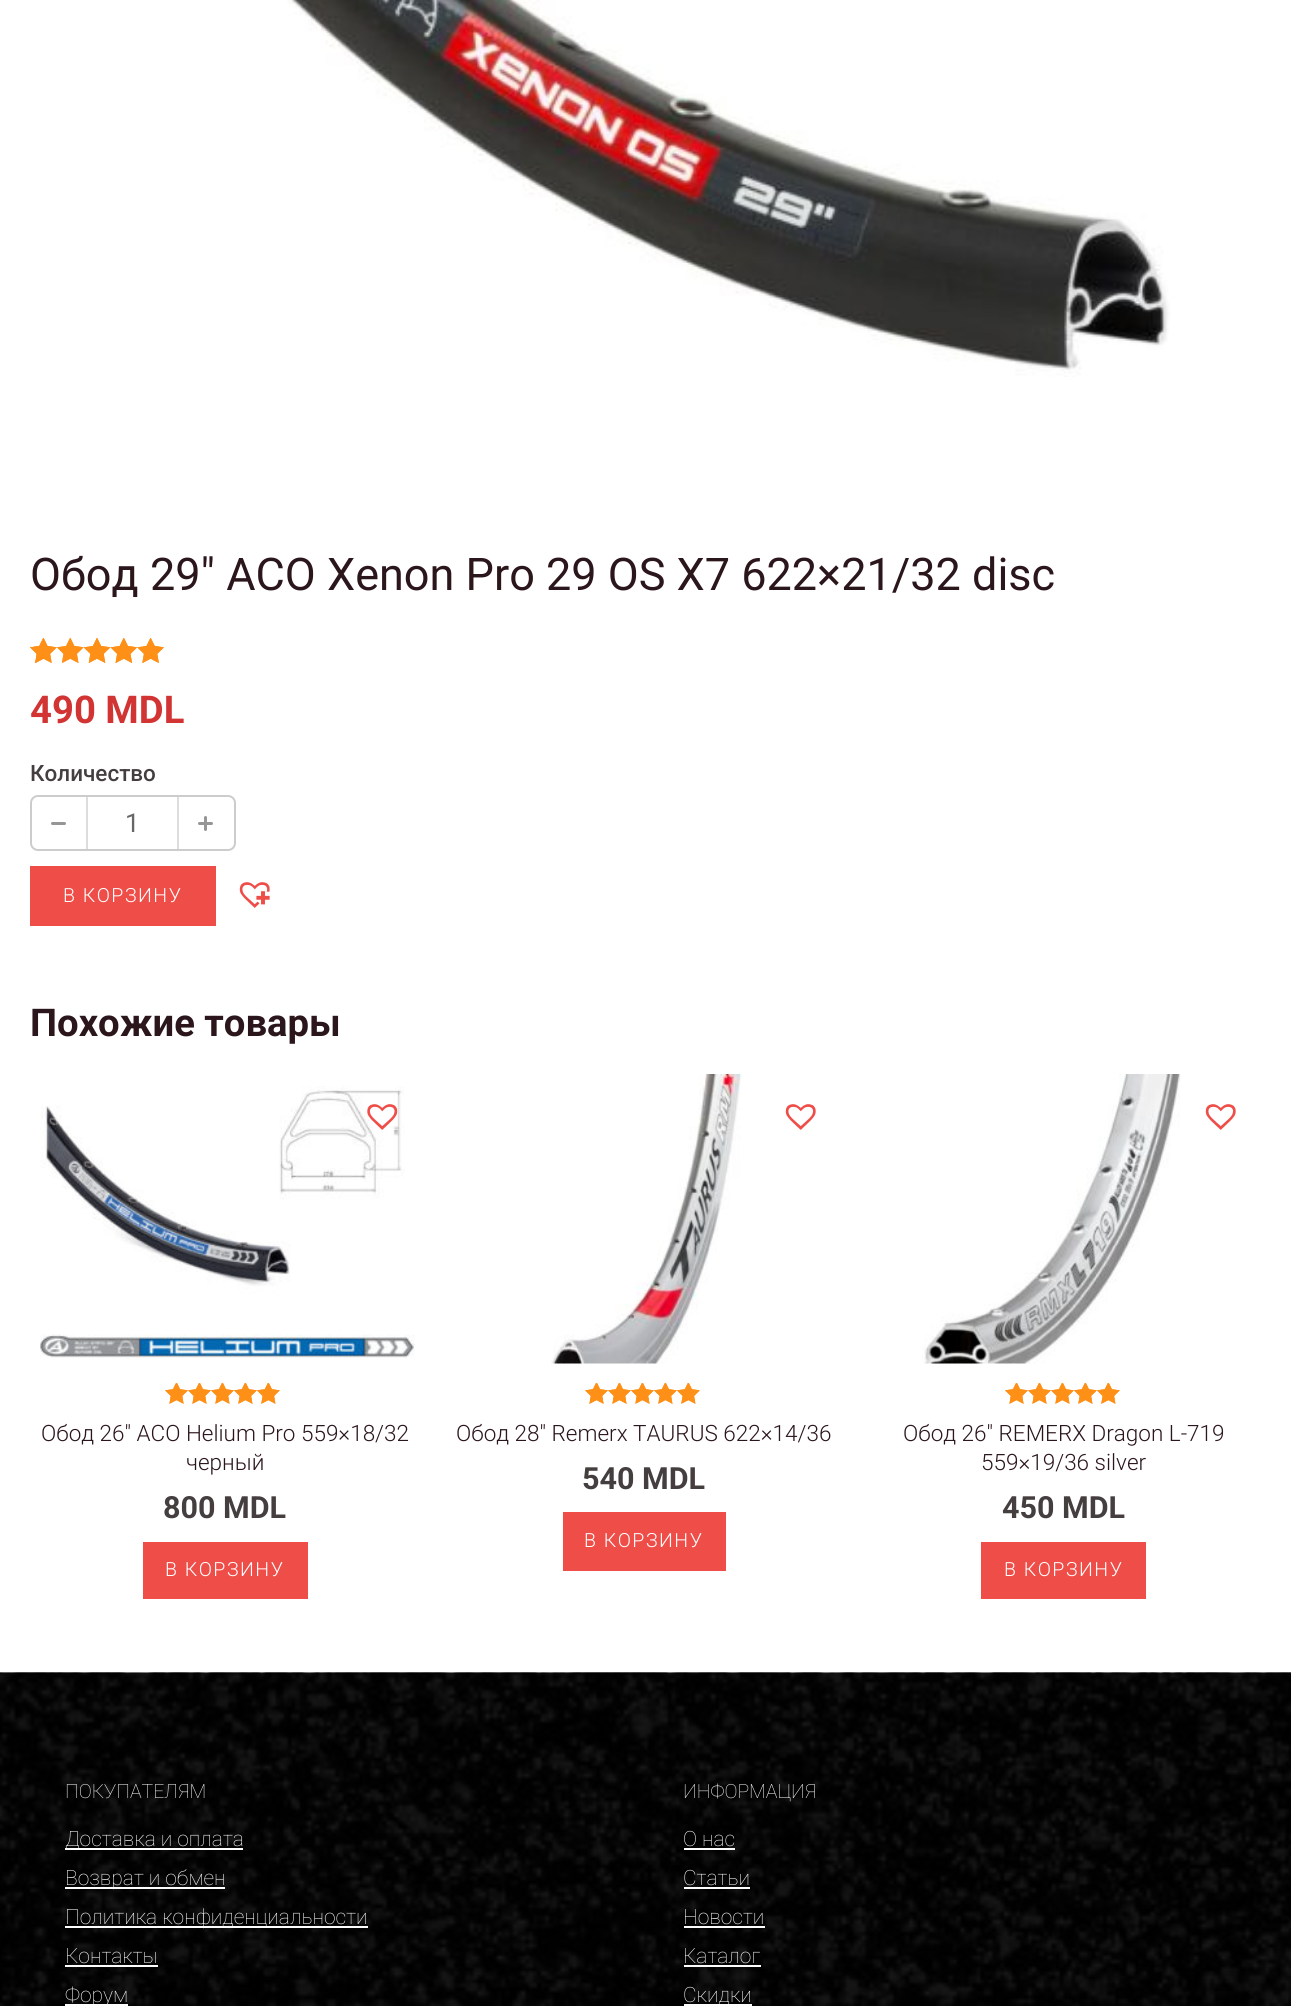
import math
import cairo

surface = cairo.ImageSurface(cairo.FORMAT_RGB24, 1291, 2006)
cr = cairo.Context(surface)
options = cairo.FontOptions()
options.set_hint_metrics(cairo.HINT_METRICS_OFF)
options.set_hint_style(cairo.HINT_STYLE_NONE)
cr.set_font_options(options)
cr.set_miter_limit(4)


def rgb(code):
    cr.set_source_rgb(*(v / 255 for v in bytes.fromhex(code[-6:])))


def tracked(x, y, s, letter, word):
    cr.move_to(x, y)
    for ch in s:
        cr.show_text(ch)
        cr.rel_move_to(letter + word * (ch == ' '), 0)


def rrect(x, y, w, h, r):
    cr.new_sub_path()
    for i, (u, v) in enumerate([(x + w - r, y + h - r), (x + r, y + h - r), (x + r, y + r), (x + w - r, y + r)]):
        cr.arc(u, v, r, i * math.pi / 2, (i + 1) * math.pi / 2)
    cr.close_path()


def image(path, x, y, w, h):
    cr.save()
    cr.set_source_surface(cairo.ImageSurface.create_from_png(path), x, y)
    cr.rectangle(x, y, w, h)
    cr.fill()
    cr.restore()


rgb("#ffffff")
cr.paint()
image("img/1.png", 287, 0, 883, 377)
image("img/2.png", 30, 638, 134, 25)
image("img/3.png", 30, 638, 134, 25)
image("img/4.png", 30, 638, 14, 25)
rrect(31, 796, 204, 54, 7)
rgb("#cccccc")
cr.stroke()
cr.new_path()
cr.move_to(52.5, 823.5)
cr.line_to(64.5, 823.5)
rgb("#969696")
cr.set_line_width(3)
cr.set_line_cap(cairo.LINE_CAP_ROUND)
cr.set_line_join(cairo.LINE_JOIN_ROUND)
cr.stroke()
rgb("#dddddd")
cr.rectangle(177, 797, 2, 52)
cr.fill()
cr.rectangle(86, 797, 2, 52)
cr.fill()
cr.new_path()
cr.move_to(205.5, 817.5)
cr.line_to(205.5, 829.5)
cr.move_to(199.5, 823.5)
cr.line_to(211.5, 823.5)
rgb("#969696")
cr.stroke()
rgb("#ef4d48")
cr.rectangle(30, 866, 186, 60)
cr.fill()
image("img/5.png", 239, 882, 31, 26)
image("img/6.png", 40, 1086, 375, 272)
image("img/7.png", 367, 1104, 31, 26)
image("img/8.png", 165, 1383, 115, 21)
image("img/9.png", 165, 1383, 115, 21)
cr.rectangle(143, 1542, 165, 57)
cr.fill()
image("img/10.png", 551, 1074, 191, 290)
image("img/11.png", 785, 1104, 31, 26)
image("img/8.png", 585, 1383, 115, 21)
image("img/9.png", 585, 1383, 115, 21)
cr.rectangle(563, 1512, 163, 59)
cr.fill()
image("img/12.png", 922, 1074, 259, 290)
image("img/11.png", 1205, 1104, 31, 26)
image("img/8.png", 1005, 1383, 115, 21)
image("img/9.png", 1005, 1383, 115, 21)
cr.rectangle(981, 1542, 165, 57)
cr.fill()
image("img/13.png", 0, 1672, 1291, 334)
for x, y, w, h, color in [
    (65, 1848, 178, 2, "#ffffff"),
    (65, 1887, 160, 2, "#ffffff"),
    (65, 1926, 303, 2, "#ffffff"),
    (65, 1965, 93, 2, "#ffffff"),
    (65, 2004, 63, 2, "#ffffff"),
    (684, 1848, 51, 2, "#ffffff"),
    (684, 1887, 66, 2, "#ffffff"),
    (684, 1926, 81, 2, "#ffffff"),
    (684, 1965, 77, 2, "#ffffff"),
    (684, 2004, 68, 2, "#ffffff"),
]:
    rgb(color)
    cr.rectangle(x, y, w, h)
    cr.fill()
cr.select_font_face("Roboto")
cr.set_font_size(45)
rgb("#2b161b")
cr.move_to(30, 590)
cr.show_text("Обод")
cr.select_font_face("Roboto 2")
cr.move_to(150, 590)
cr.show_text("29″ ACO Xenon Pro 29 OS X7 622×21/32 disc")
cr.select_font_face("Roboto", cairo.FONT_SLANT_NORMAL, cairo.FONT_WEIGHT_BOLD)
cr.set_font_size(38.25)
rgb("#d23333")
cr.move_to(30, 723)
cr.show_text("490 MDL")
cr.select_font_face("Roboto Medium")
cr.set_font_size(22.5)
rgb("#453e3e")
cr.move_to(30, 781)
cr.show_text("Количество")
cr.select_font_face("Roboto 2")
cr.set_font_size(26)
rgb("#666666")
cr.move_to(125, 832)
cr.show_text("1")
cr.select_font_face("Roboto Light")
cr.set_font_size(19.5)
rgb("#ffffff")
tracked(63, 902, "В КОРЗИНУ", 1.5, 0)
cr.select_font_face("Roboto", cairo.FONT_SLANT_NORMAL, cairo.FONT_WEIGHT_BOLD)
cr.set_font_size(38.25)
rgb("#2b161b")
cr.move_to(30, 1036)
cr.show_text("Похожие товары")
cr.select_font_face("Roboto Light")
cr.set_font_size(22.5)
cr.move_to(41, 1441)
cr.show_text("Обод 26″ ACO Helium Pro 559×18/32")
cr.move_to(186, 1470)
cr.show_text("черный")
cr.select_font_face("Roboto", cairo.FONT_SLANT_NORMAL, cairo.FONT_WEIGHT_BOLD)
cr.set_font_size(30.5)
rgb("#453e3e")
cr.move_to(163, 1518)
cr.show_text("800 MDL")
cr.select_font_face("Roboto Light")
cr.set_font_size(19.5)
rgb("#ffffff")
tracked(165, 1576, "В КОРЗИНУ", 1.5, 0)
cr.set_font_size(22.5)
rgb("#2b161b")
cr.move_to(456, 1441)
cr.show_text("Обод 28″ Remerx TAURUS 622×14/36")
cr.select_font_face("Roboto", cairo.FONT_SLANT_NORMAL, cairo.FONT_WEIGHT_BOLD)
cr.set_font_size(30.5)
rgb("#453e3e")
cr.move_to(582, 1489)
cr.show_text("540 MDL")
cr.select_font_face("Roboto Light")
cr.set_font_size(19.5)
rgb("#ffffff")
tracked(584, 1547, "В КОРЗИНУ", 1.5, 0)
cr.set_font_size(22.5)
rgb("#2b161b")
cr.move_to(903, 1441)
cr.show_text("Обод 26″ REMERX Dragon L-719")
cr.move_to(981, 1470)
cr.show_text("559×19/36 silver")
cr.select_font_face("Roboto", cairo.FONT_SLANT_NORMAL, cairo.FONT_WEIGHT_BOLD)
cr.set_font_size(30.5)
rgb("#453e3e")
cr.move_to(1002, 1518)
cr.show_text("450 MDL")
cr.select_font_face("Roboto Light")
cr.set_font_size(19.5)
rgb("#ffffff")
tracked(1004, 1576, "В КОРЗИНУ", 1.5, 0)
cr.select_font_face("Roboto Thin")
cr.move_to(65, 1798)
cr.show_text("ПОКУПАТЕЛЯМ")
cr.set_font_size(21)
for x, y, s in [
    (65, 1846, "Доставка и оплата"),
    (65, 1885, "Возврат и обмен"),
    (65, 1924, "Политика конфиденциальности"),
    (65, 1963, "Контакты"),
    (65, 2002, "Форум"),
]:
    cr.move_to(x, y)
    cr.show_text(s)
cr.set_font_size(19.5)
cr.move_to(683, 1798)
cr.show_text("ИНФОРМАЦИЯ")
cr.set_font_size(21)
for x, y, s in [
    (683, 1846, "О нас"),
    (683, 1885, "Статьи"),
    (683, 1924, "Новости"),
    (683, 1963, "Каталог"),
    (683, 2002, "Скидки"),
]:
    cr.move_to(x, y)
    cr.show_text(s)
surface.write_to_png("page.png")
